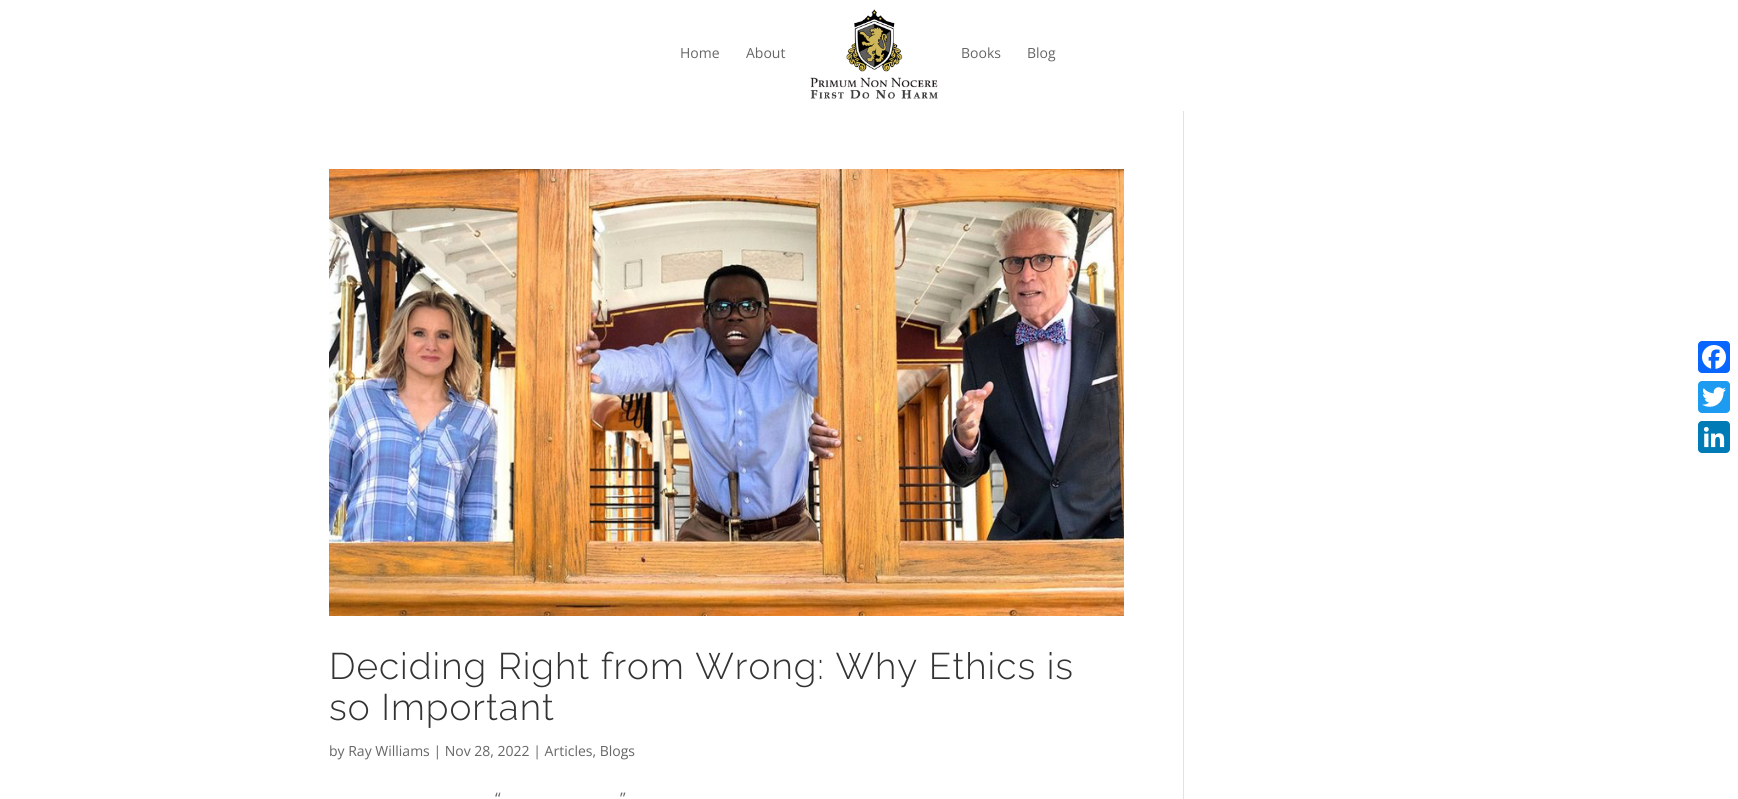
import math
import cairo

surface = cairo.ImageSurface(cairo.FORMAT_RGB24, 1738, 799)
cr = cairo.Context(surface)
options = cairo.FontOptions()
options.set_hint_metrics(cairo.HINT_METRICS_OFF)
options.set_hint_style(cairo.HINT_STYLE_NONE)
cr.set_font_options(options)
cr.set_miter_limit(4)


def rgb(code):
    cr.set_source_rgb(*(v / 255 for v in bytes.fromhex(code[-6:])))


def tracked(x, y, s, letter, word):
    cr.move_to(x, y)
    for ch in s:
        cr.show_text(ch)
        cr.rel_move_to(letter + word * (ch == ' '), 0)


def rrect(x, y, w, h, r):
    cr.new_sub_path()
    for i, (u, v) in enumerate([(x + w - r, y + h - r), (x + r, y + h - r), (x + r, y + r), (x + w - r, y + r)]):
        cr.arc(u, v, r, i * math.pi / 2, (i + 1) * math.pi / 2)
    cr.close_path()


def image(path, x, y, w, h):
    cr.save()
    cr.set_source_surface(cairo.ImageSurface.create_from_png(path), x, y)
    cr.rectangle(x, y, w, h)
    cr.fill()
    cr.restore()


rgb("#ffffff")
cr.paint()
image("img/1.png", 810, 9, 128, 90)
image("img/2.png", 329, 169, 795, 447)
rgb("#e2e2e2")
cr.rectangle(1183, 111, 1, 688)
cr.fill()
rgb("#0866ff")
rrect(1698, 341, 32, 32, 4)
cr.fill()
image("img/3.png", 1702, 345, 24, 24)
rgb("#1d9bf0")
rrect(1698, 381, 32, 32, 4)
cr.fill()
image("img/4.png", 1702, 387, 24, 20)
rgb("#007bb5")
rrect(1698, 421, 32, 32, 4)
cr.fill()
image("img/5.png", 1703, 426, 22, 22)
cr.select_font_face("Open Sans")
cr.set_font_size(14)
rgb("#666666")
for x, y, s in [
    (680, 58, "Home"),
    (746, 58, "About"),
    (961, 58, "Books"),
    (1027, 58, "Blog"),
]:
    cr.move_to(x, y)
    cr.show_text(s)
cr.select_font_face("Raleway Light")
cr.set_font_size(37)
rgb("#333333")
tracked(329, 679, "Deciding Right from Wrong: Why Ethics is", 1, 0)
tracked(329, 720, "so Important", 1, 0)
cr.select_font_face("Open Sans")
cr.set_font_size(14)
rgb("#666666")
cr.move_to(329, 756)
cr.show_text("by Ray Williams | Nov 28, 2022 | Articles, Blogs")
cr.set_font_size(16)
cr.move_to(495, 804)
cr.show_text("“")
cr.move_to(620, 804)
cr.show_text("”")
surface.write_to_png("page.png")
